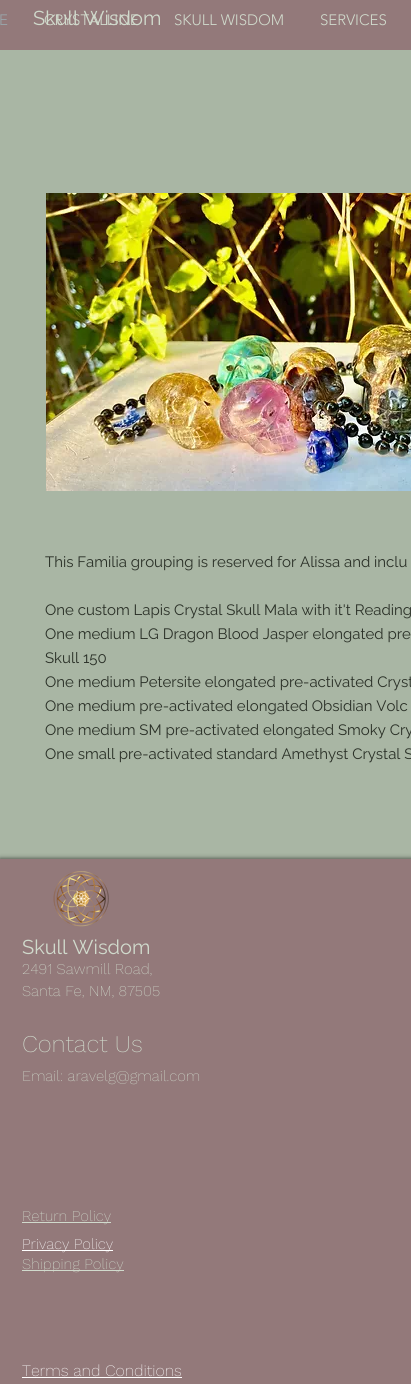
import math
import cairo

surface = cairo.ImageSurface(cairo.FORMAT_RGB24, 411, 1384)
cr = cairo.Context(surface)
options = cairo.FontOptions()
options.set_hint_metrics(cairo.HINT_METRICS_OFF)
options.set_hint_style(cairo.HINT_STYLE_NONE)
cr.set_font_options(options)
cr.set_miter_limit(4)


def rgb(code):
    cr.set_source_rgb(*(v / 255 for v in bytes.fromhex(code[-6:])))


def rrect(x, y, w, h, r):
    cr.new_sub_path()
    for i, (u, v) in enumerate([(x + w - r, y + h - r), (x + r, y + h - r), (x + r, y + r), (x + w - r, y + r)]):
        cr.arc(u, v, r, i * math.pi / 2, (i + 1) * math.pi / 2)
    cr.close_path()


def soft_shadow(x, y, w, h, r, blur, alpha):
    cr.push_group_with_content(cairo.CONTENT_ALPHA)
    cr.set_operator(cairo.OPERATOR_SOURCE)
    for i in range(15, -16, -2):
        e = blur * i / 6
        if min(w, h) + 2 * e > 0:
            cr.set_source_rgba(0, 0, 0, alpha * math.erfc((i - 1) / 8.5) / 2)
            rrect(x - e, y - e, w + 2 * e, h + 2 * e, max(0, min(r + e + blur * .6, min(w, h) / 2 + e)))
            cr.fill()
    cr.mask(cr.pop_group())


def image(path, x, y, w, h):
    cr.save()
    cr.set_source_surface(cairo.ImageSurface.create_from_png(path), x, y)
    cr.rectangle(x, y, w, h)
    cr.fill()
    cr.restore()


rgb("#a9b6a4")
cr.paint()
rgb("#93797a")
cr.rectangle(0, 0, 411, 50)
cr.fill()
image("img/1.png", 46, 193, 365, 298)
rgb("#000000")
soft_shadow(0, 859, 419, 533, 0, 2.5, 0.7)
rgb("#93797a")
cr.rectangle(0, 859, 411, 525)
cr.fill()
image("img/2.png", 53, 871, 56, 56)
for x, y, w, h, color in [
    (22, 1222, 89, 1, "#d0dacc"),
    (22, 1250, 91, 1, "#ffffff"),
    (22, 1270, 102, 1, "#d0dacc"),
    (22, 1377, 160, 1, "#ffffff"),
]:
    rgb(color)
    cr.rectangle(x, y, w, h)
    cr.fill()
cr.select_font_face("Raleway")
cr.set_font_size(20)
rgb("#d0dacc")
cr.move_to(33, 25)
cr.show_text("Skull Wisdom")
cr.select_font_face("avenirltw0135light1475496 Light")
cr.set_font_size(15)
rgb("#99a6ab")
cr.move_to(-1, 25)
cr.show_text("E")
rgb("#d0dacc")
for x, y, s in [
    (44, 25, "CRYSTALLINE"),
    (174, 25, "SKULL WISDOM"),
    (320, 25, "SERVICES"),
]:
    cr.move_to(x, y)
    cr.show_text(s)
cr.select_font_face("Raleway")
rgb("#2a3027")
for x, y, s in [
    (45, 567, "This Familia grouping is reserved for Alissa and inclu"),
    (45, 615, "One custom Lapis Crystal Skull Mala with it't Reading"),
    (45, 639, "One medium LG Dragon Blood Jasper elongated pre"),
    (45, 663, "Skull 150"),
    (45, 687, "One medium Petersite elongated pre-activated Cryst"),
    (45, 711, "One medium pre-activated elongated Obsidian Volc"),
    (45, 735, "One medium SM pre-activated elongated Smoky Cry"),
    (45, 759, "One small pre-activated standard Amethyst Crystal S"),
]:
    cr.move_to(x, y)
    cr.show_text(s)
cr.set_font_size(20)
rgb("#d0dacc")
cr.move_to(22, 954)
cr.show_text("Skull Wisdom")
cr.select_font_face("Work Sans ExtraLight")
cr.set_font_size(15)
cr.move_to(22, 974)
cr.show_text("2491 Sawmill Road,")
cr.move_to(22, 996)
cr.show_text("Santa Fe, NM, 87505")
cr.set_font_size(24)
cr.move_to(22, 1052)
cr.show_text("Contact Us")
cr.set_font_size(15)
cr.move_to(22, 1081)
cr.show_text("Email: aravelg@gmail.com")
cr.move_to(22, 1221)
cr.show_text("Return Policy")
rgb("#ffffff")
cr.move_to(22, 1249)
cr.show_text("Privacy Policy")
rgb("#d0dacc")
cr.move_to(22, 1269)
cr.show_text("Shipping Policy")
cr.set_font_size(16)
rgb("#ffffff")
cr.move_to(22, 1376)
cr.show_text("Terms and Conditions")
surface.write_to_png("page.png")
